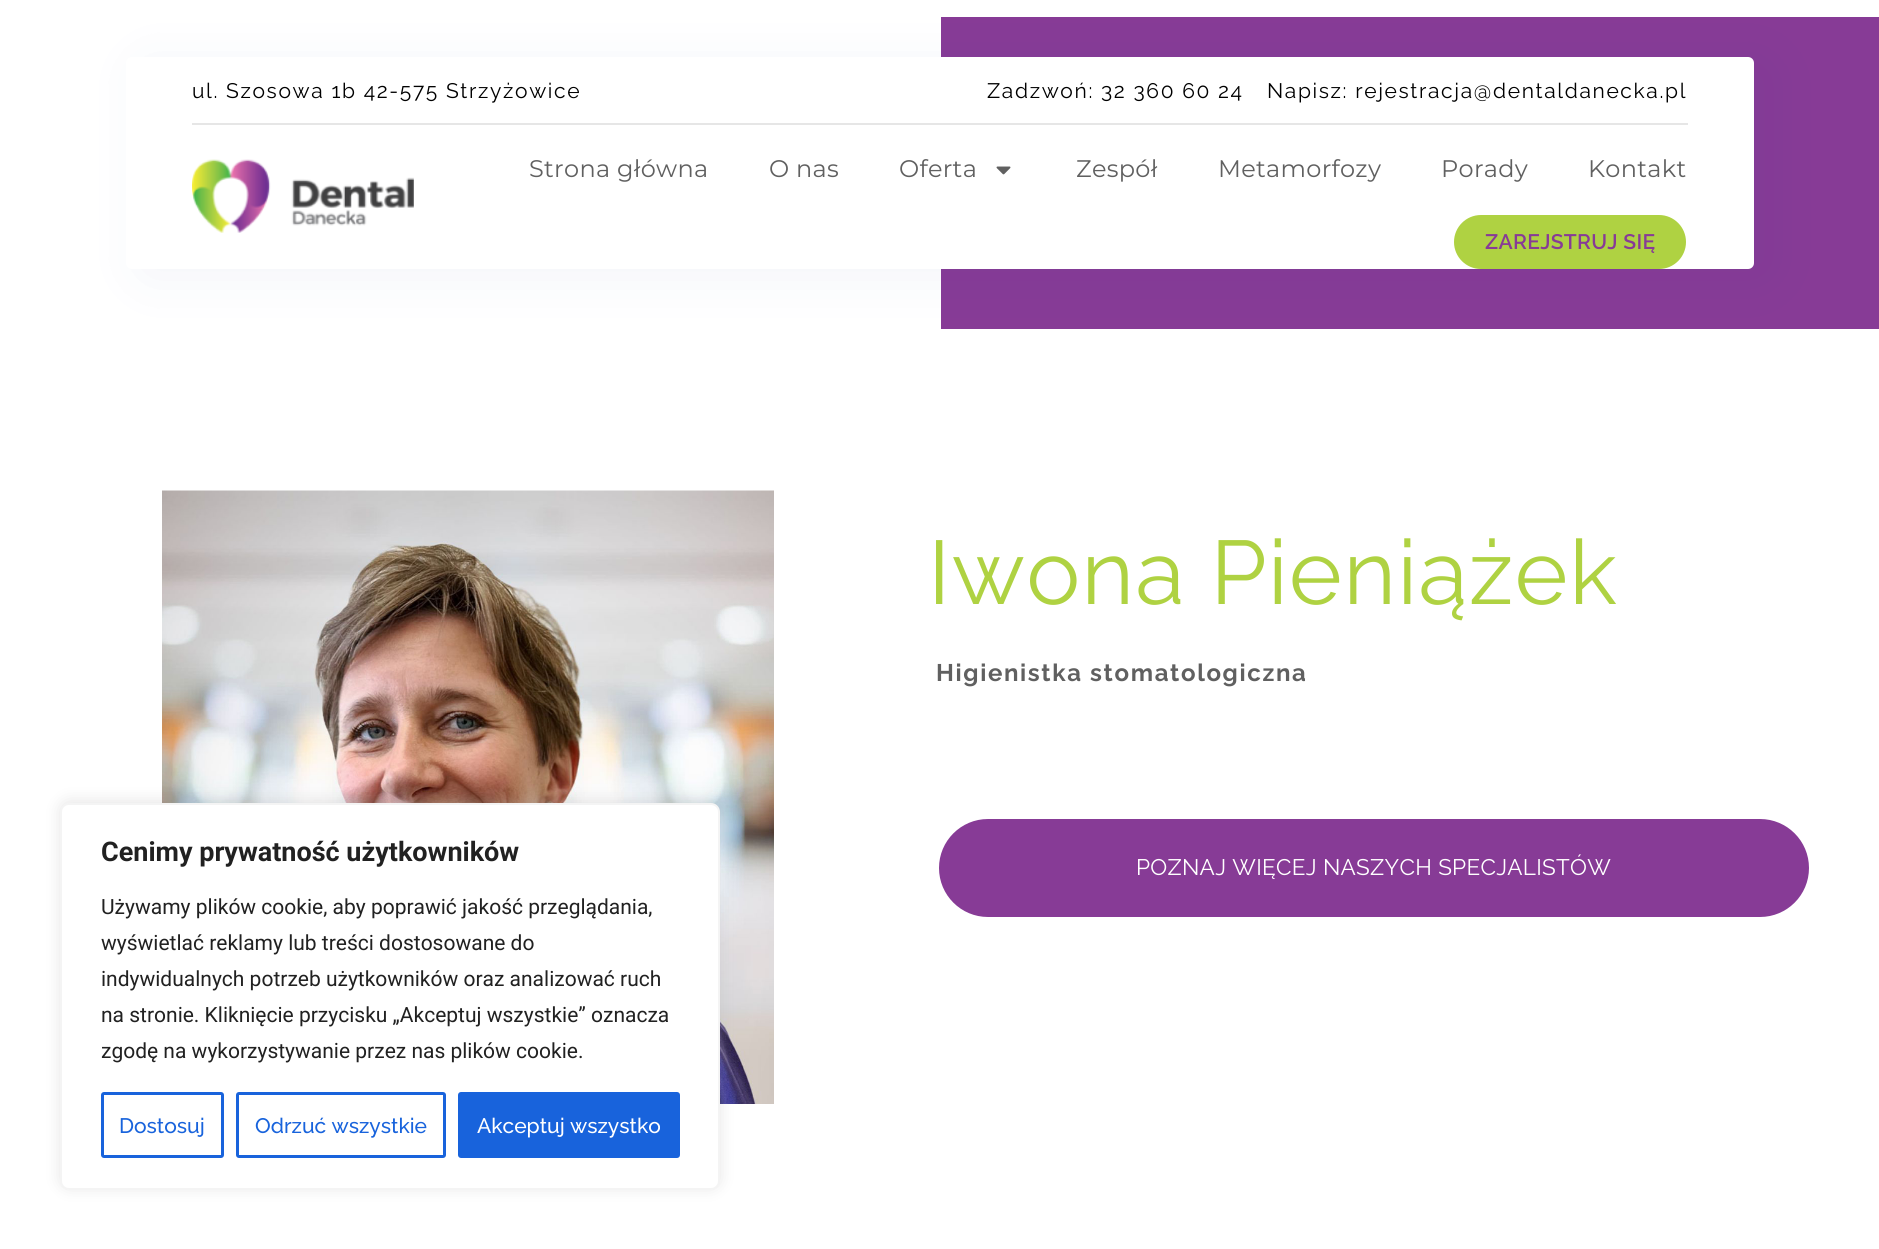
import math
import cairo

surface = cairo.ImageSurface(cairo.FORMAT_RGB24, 1879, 1249)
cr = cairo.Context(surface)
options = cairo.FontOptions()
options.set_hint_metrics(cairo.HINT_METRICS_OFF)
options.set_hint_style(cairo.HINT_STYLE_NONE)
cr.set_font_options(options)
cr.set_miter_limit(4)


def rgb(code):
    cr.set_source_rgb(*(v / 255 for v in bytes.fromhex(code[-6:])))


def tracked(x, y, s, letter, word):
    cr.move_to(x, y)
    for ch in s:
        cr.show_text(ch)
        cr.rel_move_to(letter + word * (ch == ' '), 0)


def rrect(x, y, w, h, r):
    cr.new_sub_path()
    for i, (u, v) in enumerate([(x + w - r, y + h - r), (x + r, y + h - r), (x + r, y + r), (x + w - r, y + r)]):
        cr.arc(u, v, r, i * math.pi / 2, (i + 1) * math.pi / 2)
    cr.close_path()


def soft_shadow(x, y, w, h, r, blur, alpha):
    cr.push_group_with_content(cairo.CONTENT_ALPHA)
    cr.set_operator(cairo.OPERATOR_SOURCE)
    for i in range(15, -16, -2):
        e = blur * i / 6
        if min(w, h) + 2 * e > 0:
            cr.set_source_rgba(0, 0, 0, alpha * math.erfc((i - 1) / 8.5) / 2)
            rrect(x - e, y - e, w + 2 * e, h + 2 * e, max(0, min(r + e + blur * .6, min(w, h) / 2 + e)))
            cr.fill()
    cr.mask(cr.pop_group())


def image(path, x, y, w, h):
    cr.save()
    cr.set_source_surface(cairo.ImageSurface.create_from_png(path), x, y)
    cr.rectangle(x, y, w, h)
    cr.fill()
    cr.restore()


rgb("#ffffff")
cr.paint()
rgb("#873b96")
cr.rectangle(941, 17, 938, 312)
cr.fill()
rgb("#14308b")
soft_shadow(141, 65, 1628, 211, 6, 28, 0.06)
rgb("#ffffff")
rrect(126, 57, 1628, 212, 6)
cr.fill()
rgb("#e6e6e6")
cr.rectangle(192, 123, 1496, 2)
cr.fill()
image("img/1.png", 192, 159, 222, 74)
image("img/2.png", 996, 166, 15, 9)
rgb("#afd242")
rrect(1455, 216, 230, 52, 26)
cr.fill_preserve()
cr.stroke()
image("img/3.png", 162, 490, 612, 614)
rgb("#873b96")
rrect(937.5, 817.5, 873, 101, 50.5)
cr.fill_preserve()
rgb("#ffffff")
cr.set_line_width(3)
cr.stroke()
rgb("#acabab")
soft_shadow(60, 801, 660, 387, 9, 7.5, 0.3)
rgb("#ffffff")
rrect(61, 804, 658, 385, 8)
cr.fill_preserve()
rgb("#f4f4f4")
cr.set_line_width(2)
cr.stroke()
rrect(102.5, 1093.5, 120, 63, 1.5)
rgb("#1863dc")
cr.set_line_width(3)
cr.stroke()
rrect(237.5, 1093.5, 207, 63, 1.5)
cr.stroke()
rrect(459.5, 1093.5, 219, 63, 1.5)
cr.fill_preserve()
cr.stroke()
cr.select_font_face("Raleway")
cr.set_font_size(21)
rgb("#000000")
for x, y, s in [
    (192, 98, "ul. Szosowa 1b 42-575 Strzyżowice"),
    (987, 98, "Zadzwoń: 32 360 60 24"),
    (1267, 98, "Napisz: rejestracja@dentaldanecka.pl"),
]:
    tracked(x, y, s, 1.65, 0)
cr.select_font_face("Montserrat")
cr.set_font_size(24)
rgb("#606060")
for x, y, s in [
    (529, 177, "Strona główna"),
    (769, 177, "O nas"),
    (899, 177, "Oferta"),
    (1076, 177, "Zespół"),
    (1218, 177, "Metamorfozy"),
    (1441, 177, "Porady"),
    (1588, 177, "Kontakt"),
]:
    tracked(x, y, s, 0.3, 0)
cr.select_font_face("Raleway SemiBold")
cr.set_font_size(21)
rgb("#873b96")
tracked(1485, 249, "ZAREJSTRUJ SIĘ", 0.3, 0)
cr.select_font_face("Raleway")
cr.set_font_size(90)
rgb("#afd242")
tracked(928, 604, "Iwona Pieniążek", 1.5, 0)
cr.select_font_face("Raleway", cairo.FONT_SLANT_NORMAL, cairo.FONT_WEIGHT_BOLD)
cr.set_font_size(24)
rgb("#606060")
tracked(936, 681, "Higienistka stomatologiczna", 1.65, 0)
cr.select_font_face("Raleway")
cr.set_font_size(22.5)
rgb("#ffffff")
tracked(1136, 875, "POZNAJ WIĘCEJ NASZYCH SPECJALISTÓW", 0.3, 0)
cr.select_font_face("Roboto", cairo.FONT_SLANT_NORMAL, cairo.FONT_WEIGHT_BOLD)
cr.set_font_size(27)
rgb("#212121")
cr.move_to(101, 861)
cr.show_text("Cenimy prywatność użytkowników")
cr.select_font_face("Roboto")
cr.set_font_size(21)
for x, y, s in [
    (101, 914, "Używamy plików cookie, aby poprawić jakość przeglądania,"),
    (101, 950, "wyświetlać reklamy lub treści dostosowane do"),
    (101, 986, "indywidualnych potrzeb użytkowników oraz analizować ruch"),
    (101, 1022, "na stronie. Kliknięcie przycisku „Akceptuj wszystkie” oznacza"),
    (101, 1058, "zgodę na wykorzystywanie przez nas plików cookie."),
]:
    cr.move_to(x, y)
    cr.show_text(s)
cr.select_font_face("Raleway Medium")
rgb("#1863dc")
cr.move_to(119, 1133)
cr.show_text("Dostosuj")
cr.move_to(255, 1133)
cr.show_text("Odrzuć wszystkie")
rgb("#ffffff")
cr.move_to(477, 1133)
cr.show_text("Akceptuj wszystko")
surface.write_to_png("page.png")
